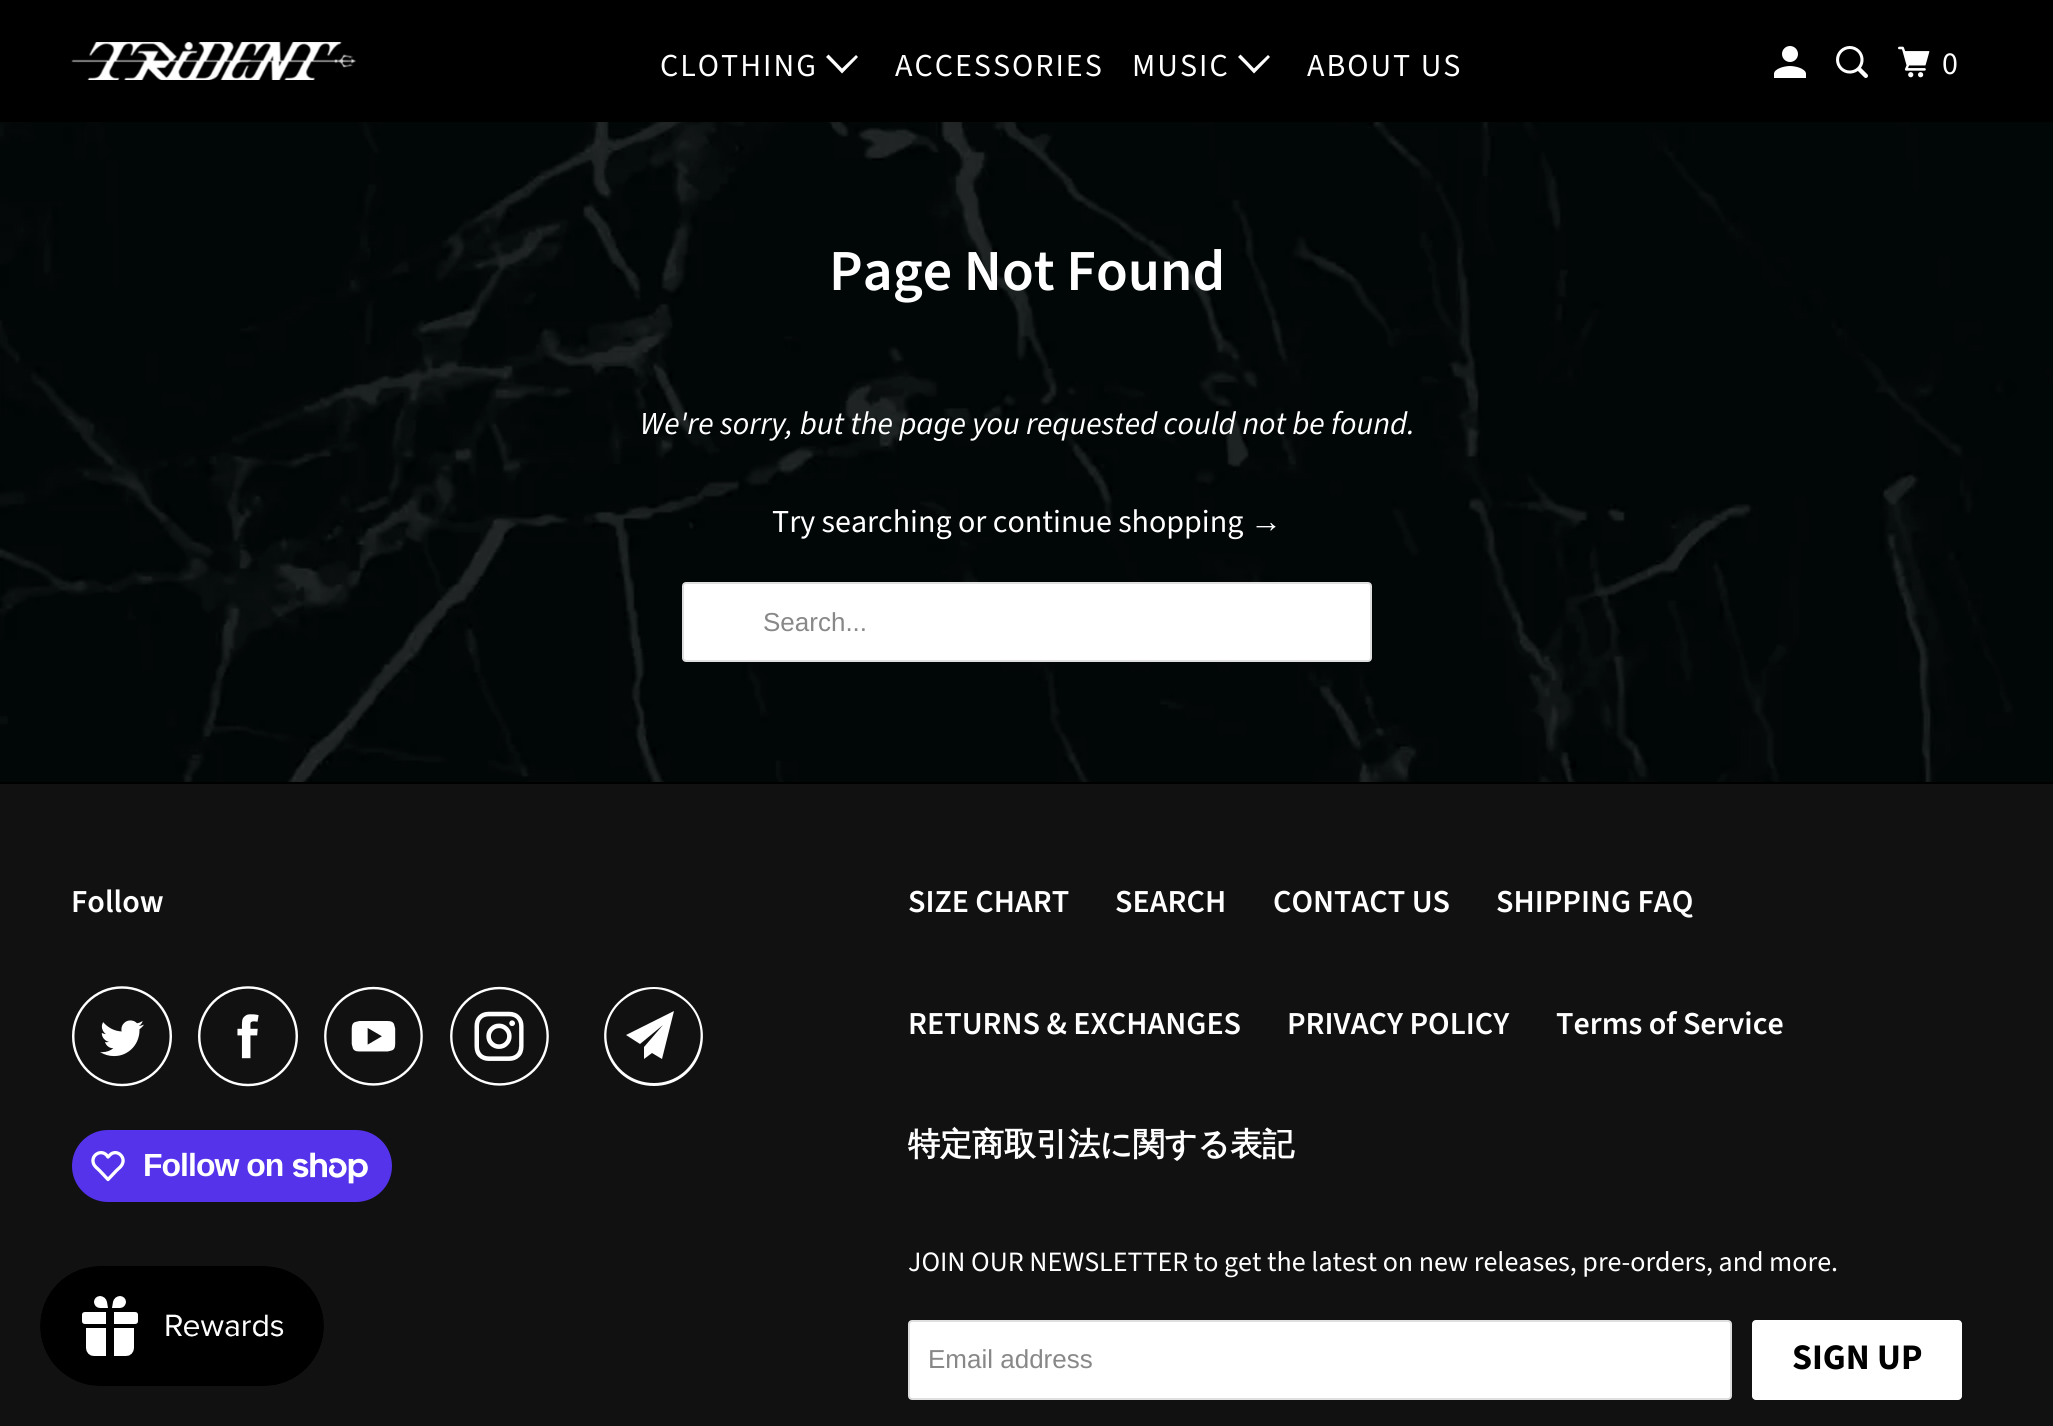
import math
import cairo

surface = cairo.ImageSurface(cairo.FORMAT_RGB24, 2053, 1426)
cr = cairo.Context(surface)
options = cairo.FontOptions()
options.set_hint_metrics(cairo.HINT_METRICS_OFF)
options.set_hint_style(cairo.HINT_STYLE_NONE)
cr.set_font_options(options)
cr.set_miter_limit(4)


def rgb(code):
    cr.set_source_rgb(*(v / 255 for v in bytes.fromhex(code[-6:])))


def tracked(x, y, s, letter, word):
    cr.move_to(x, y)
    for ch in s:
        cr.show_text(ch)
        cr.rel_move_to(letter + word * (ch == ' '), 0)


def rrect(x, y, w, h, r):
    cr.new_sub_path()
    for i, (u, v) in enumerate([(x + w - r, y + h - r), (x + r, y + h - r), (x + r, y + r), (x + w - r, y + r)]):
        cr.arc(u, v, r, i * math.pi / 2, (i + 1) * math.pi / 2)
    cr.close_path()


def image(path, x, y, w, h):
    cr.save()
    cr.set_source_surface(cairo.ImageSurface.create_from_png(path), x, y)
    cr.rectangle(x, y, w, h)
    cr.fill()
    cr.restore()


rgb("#ffffff")
cr.paint()
rgb("#000000")
cr.rectangle(0, 0, 2053, 122)
cr.fill()
image("img/1.png", 71, 42, 286, 38)
rgb("#ffffff")
cr.new_path()
cr.move_to(834, 65)
cr.line_to(826, 57)
cr.line_to(828.5, 54.5)
cr.line_to(842, 68.5)
cr.line_to(856, 55)
cr.line_to(858, 57)
cr.line_to(842, 73.5)
cr.close_path()
cr.fill()
cr.new_path()
cr.move_to(1246, 65)
cr.line_to(1238, 57)
cr.line_to(1240.5, 54.5)
cr.line_to(1254, 68.5)
cr.line_to(1268, 55)
cr.line_to(1270, 57)
cr.line_to(1254, 73.5)
cr.close_path()
cr.fill()
image("img/2.png", 1774, 46, 32, 32)
image("img/3.png", 1836, 46, 32, 32)
image("img/4.png", 1898, 46, 32, 32)
image("img/5.png", 0, 122, 2053, 660)
rrect(683, 583, 688, 78, 3)
cr.fill_preserve()
rgb("#dfdfdf")
cr.stroke()
rgb("#111111")
cr.rectangle(0, 784, 2053, 642)
cr.fill()
rgb("#000000")
cr.rectangle(0, 782, 2053, 2)
cr.fill()
image("img/6.png", 72, 986, 100, 101)
image("img/7.png", 198, 986, 100, 101)
image("img/8.png", 324, 986, 99, 100)
image("img/9.png", 450, 986, 99, 100)
rgb("#ffffff")
cr.new_path()
cr.move_to(662, 1059)
cr.line_to(652, 1053)
cr.line_to(644, 1059)
cr.line_to(644, 1047)
cr.line_to(663, 1025)
cr.line_to(640, 1044)
cr.line_to(626, 1035)
cr.line_to(674, 1011)
cr.close_path()
cr.move_to(654, 989)
cr.curve_to(643, 989, 633, 993, 625, 999)
cr.curve_to(589, 1026, 609, 1083, 654, 1083)
cr.curve_to(698, 1083, 718, 1025, 682, 999)
cr.curve_to(673, 993, 664, 989, 654, 989)
cr.close_path()
cr.move_to(654, 1086)
cr.curve_to(606, 1086, 586, 1025, 624, 997)
cr.curve_to(632, 990, 643, 987, 654, 987)
cr.curve_to(664, 987, 674, 990, 683, 997)
cr.curve_to(721, 1025, 701, 1086, 654, 1086)
cr.close_path()
cr.fill()
rgb("#5433eb")
rrect(72, 1130, 320, 72, 36)
cr.fill()
cr.new_path()
cr.move_to(106.5, 1155)
cr.line_to(108, 1157)
cr.curve_to(109.5, 1155.5, 111, 1153.5, 113, 1153)
cr.curve_to(119, 1151, 125, 1157.5, 122.5, 1163.5)
cr.curve_to(121.5, 1166.5, 118.5, 1168.5, 116.5, 1170.5)
cr.line_to(108, 1179.5)
cr.line_to(99.5, 1170.5)
cr.curve_to(97.5, 1168.5, 94.5, 1166.5, 93.5, 1163.5)
cr.curve_to(90.5, 1155.5, 100.5, 1149, 106.5, 1155)
cr.close_path()
rgb("#ffffff")
cr.set_line_width(3.3)
cr.set_line_join(cairo.LINE_JOIN_ROUND)
cr.stroke()
image("img/10.png", 293, 1152, 75, 32)
rrect(909, 1321, 822, 78, 3)
cr.fill_preserve()
rgb("#dfdfdf")
cr.set_line_width(2)
cr.set_line_join(cairo.LINE_JOIN_MITER)
cr.stroke()
rgb("#ffffff")
rrect(1752, 1320, 210, 80, 4)
cr.fill()
image("img/11.png", 40, 1266, 284, 120)
cr.select_font_face("Source Sans Pro")
cr.set_font_size(32)
for x, y, s in [
    (660, 76, "CLOTHING"),
    (895, 76, "ACCESSORIES"),
    (1132, 76, "MUSIC"),
    (1307, 76, "ABOUT US"),
    (1942, 74, "0"),
]:
    tracked(x, y, s, 2, 0)
cr.select_font_face("Source Sans Pro SemiBold")
cr.set_font_size(58)
cr.move_to(829, 290)
cr.show_text("Page Not Found")
cr.select_font_face("Source Sans Pro", cairo.FONT_SLANT_ITALIC)
cr.set_font_size(32)
cr.move_to(640, 434)
cr.show_text("We're sorry, but the page you requested could not be found.")
cr.select_font_face("Source Sans Pro")
cr.move_to(772, 532)
cr.show_text("Try searching or continue shopping")
cr.select_font_face("Liberation Sans")
cr.move_to(1250, 532)
cr.show_text("→")
cr.set_font_size(26)
rgb("#888888")
cr.move_to(763, 631)
cr.show_text("Search...")
cr.select_font_face("Source Sans Pro SemiBold")
cr.set_font_size(32)
rgb("#ffffff")
cr.move_to(71, 912)
cr.show_text("Follow")
cr.select_font_face("Liberation Sans", cairo.FONT_SLANT_NORMAL, cairo.FONT_WEIGHT_BOLD)
tracked(143, 1176, "Follow on", -1, 0)
cr.select_font_face("Source Sans Pro SemiBold")
for x, y, s in [
    (908, 912, "SIZE CHART"),
    (1115, 912, "SEARCH"),
    (1273, 912, "CONTACT US"),
    (1496, 912, "SHIPPING FAQ"),
    (908, 1034, "RETURNS & EXCHANGES"),
    (1287, 1034, "PRIVACY POLICY"),
    (1556, 1034, "Terms of Service"),
]:
    cr.move_to(x, y)
    cr.show_text(s)
cr.select_font_face("WenQuanYi Zen Hei", cairo.FONT_SLANT_NORMAL, cairo.FONT_WEIGHT_BOLD)
cr.move_to(908, 1155)
cr.show_text("特定商取引法に関する表記")
cr.select_font_face("Source Sans Pro")
cr.set_font_size(28)
cr.move_to(908, 1271)
cr.show_text("JOIN OUR NEWSLETTER to get the latest on new releases, pre-orders, and more.")
cr.select_font_face("Liberation Sans")
cr.set_font_size(26)
rgb("#888888")
cr.move_to(928, 1368)
cr.show_text("Email address")
cr.select_font_face("Source Sans Pro", cairo.FONT_SLANT_NORMAL, cairo.FONT_WEIGHT_BOLD)
cr.set_font_size(36)
rgb("#000000")
cr.move_to(1792, 1369)
cr.show_text("SIGN UP")
surface.write_to_png("page.png")
